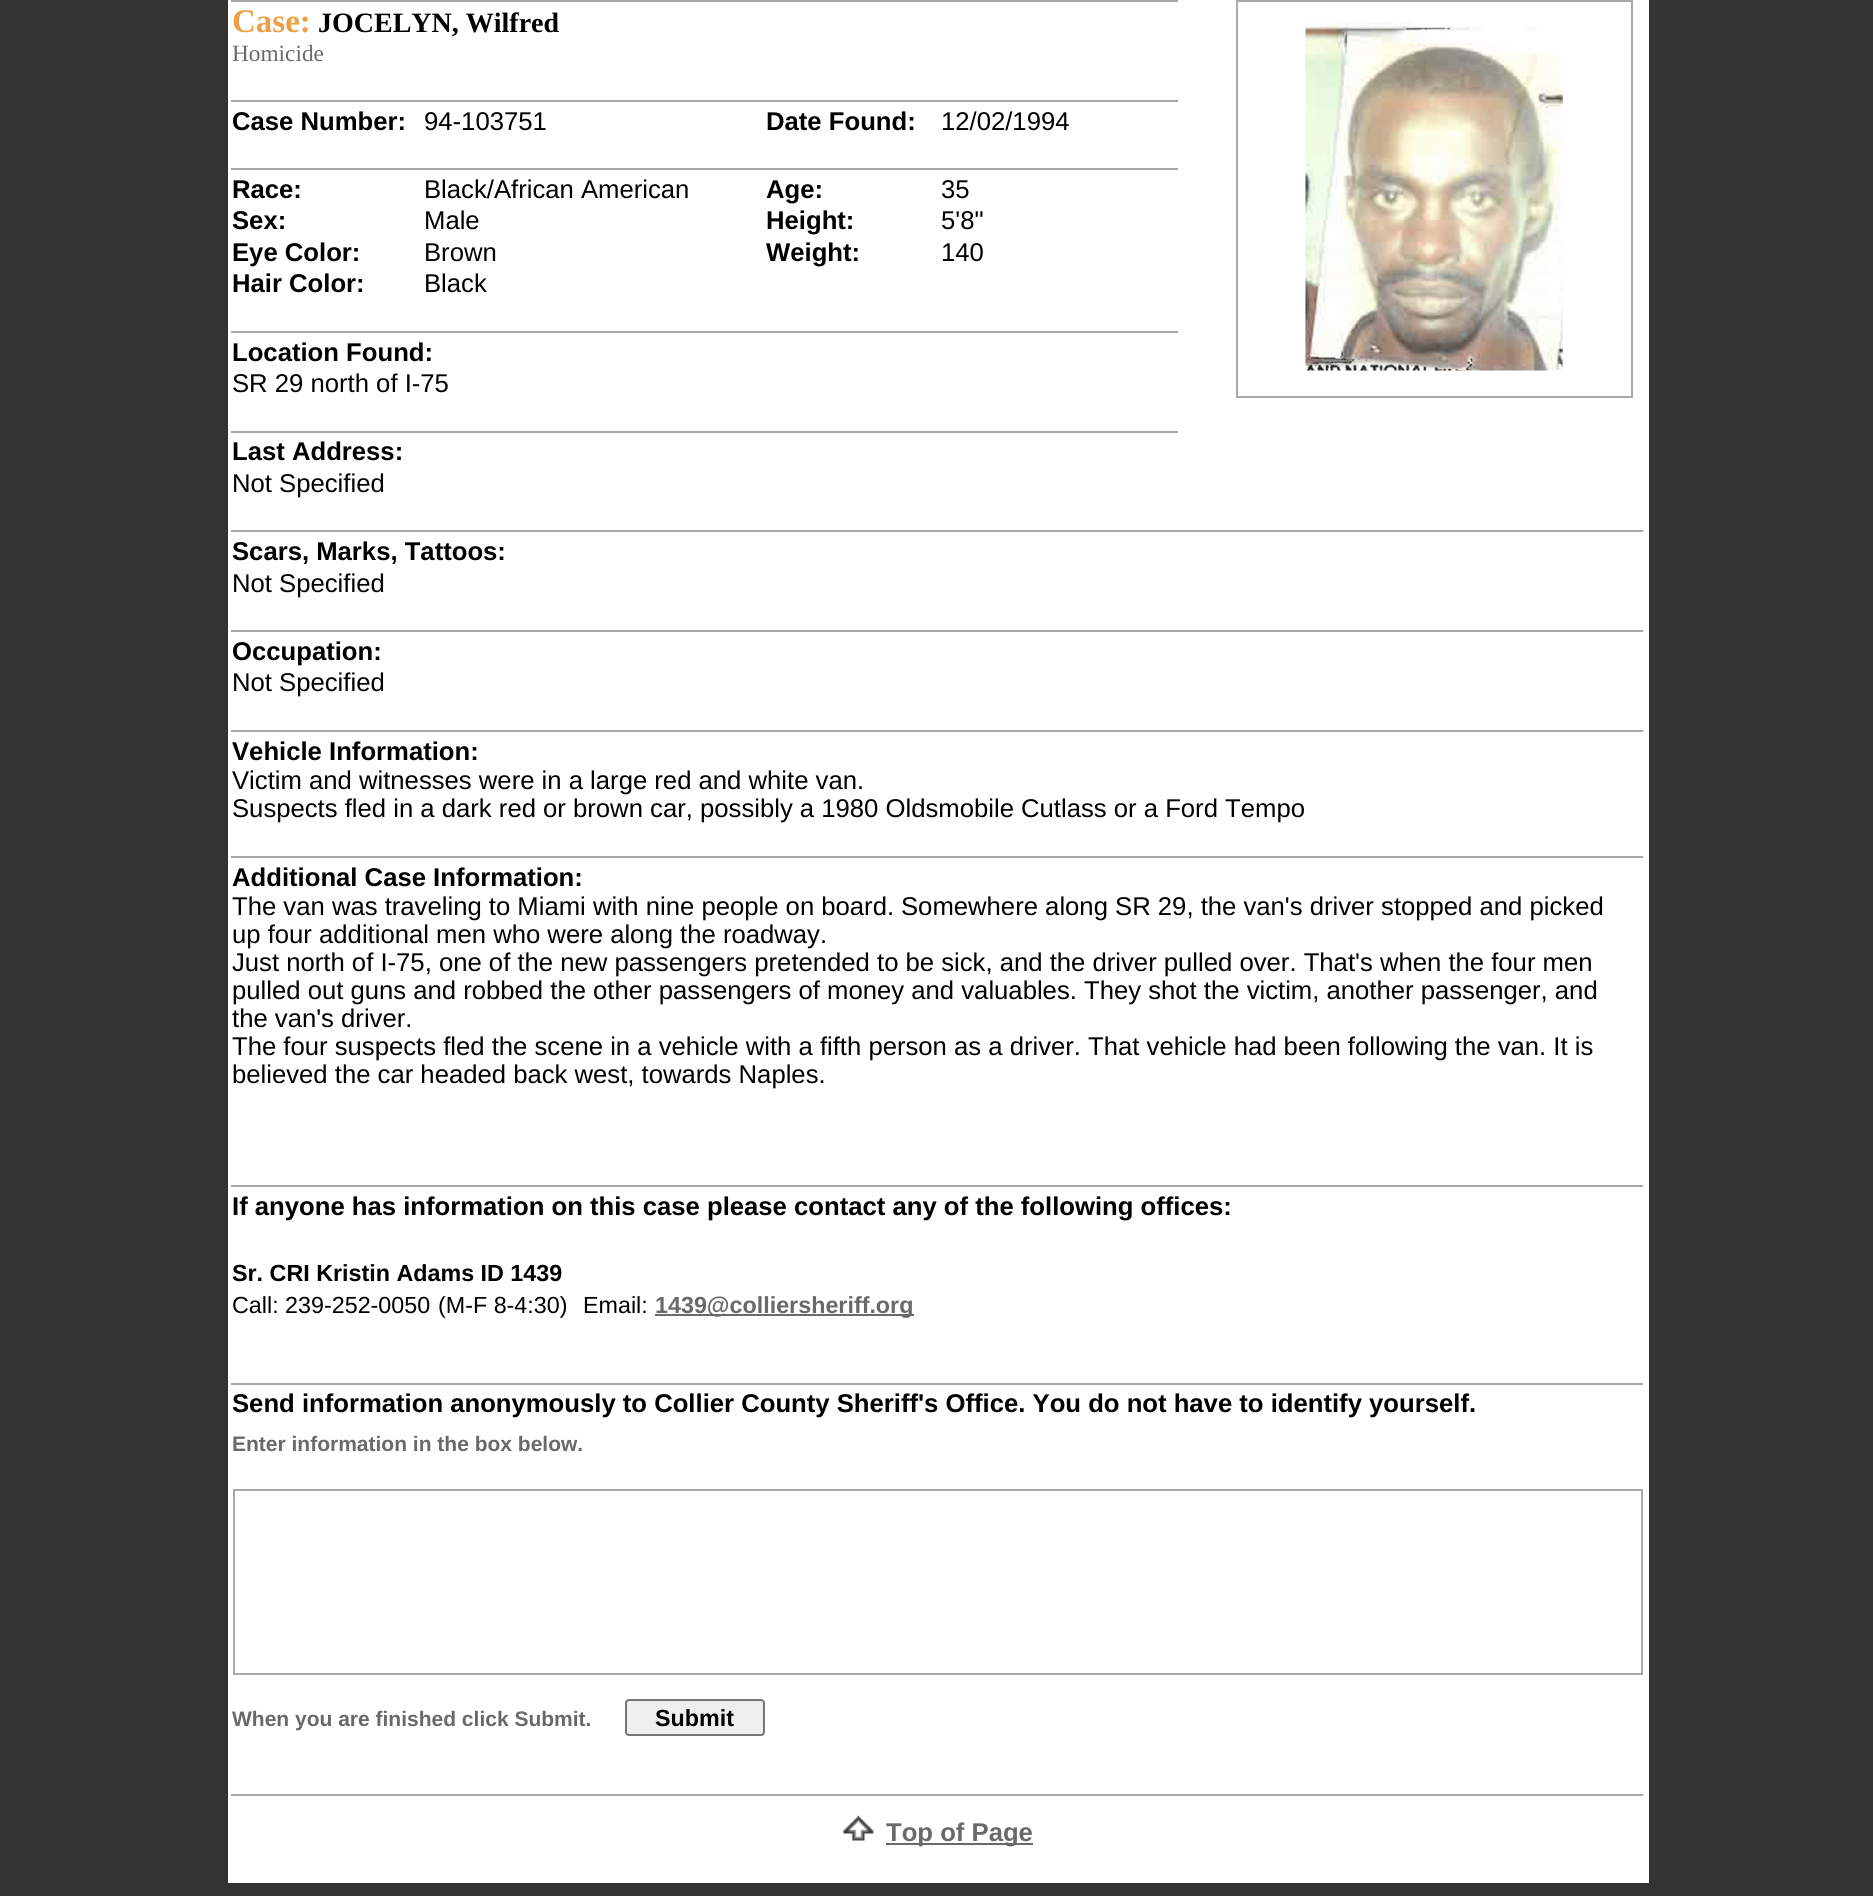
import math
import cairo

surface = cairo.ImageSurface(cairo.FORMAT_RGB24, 1873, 1896)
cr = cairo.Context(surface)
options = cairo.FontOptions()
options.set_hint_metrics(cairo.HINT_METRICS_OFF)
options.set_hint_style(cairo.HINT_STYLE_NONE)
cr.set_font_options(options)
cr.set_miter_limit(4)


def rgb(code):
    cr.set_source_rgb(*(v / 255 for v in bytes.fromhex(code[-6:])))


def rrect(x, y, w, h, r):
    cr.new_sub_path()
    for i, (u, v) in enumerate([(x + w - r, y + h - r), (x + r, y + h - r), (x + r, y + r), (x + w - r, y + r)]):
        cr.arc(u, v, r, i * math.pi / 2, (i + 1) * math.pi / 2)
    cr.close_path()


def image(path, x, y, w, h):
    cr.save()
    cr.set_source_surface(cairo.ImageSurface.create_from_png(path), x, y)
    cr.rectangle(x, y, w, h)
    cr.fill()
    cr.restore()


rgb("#333333")
cr.paint()
for x, y, w, h, color in [
    (228, 0, 1421, 1883, "#ffffff"),
    (231, 0, 947, 2, "#a9a9a9"),
    (231, 100, 947, 2, "#a9a9a9"),
    (231, 168, 947, 2, "#a9a9a9"),
    (231, 331, 947, 2, "#a9a9a9"),
    (231, 431, 947, 2, "#a9a9a9"),
    (1236, 0, 397, 2, "#a9a9a9"),
    (1631, 0, 2, 397, "#a9a9a9"),
    (1236, 396, 397, 2, "#a9a9a9"),
    (1236, 0, 2, 397, "#a9a9a9"),
]:
    rgb(color)
    cr.rectangle(x, y, w, h)
    cr.fill()
image("img/1.png", 1305, 20, 258, 351)
for x, y, w, h, color in [
    (231, 530, 1412, 2, "#a9a9a9"),
    (231, 630, 1412, 2, "#a9a9a9"),
    (231, 730, 1412, 2, "#a9a9a9"),
    (231, 856, 1412, 2, "#a9a9a9"),
    (231, 1185, 1412, 2, "#a9a9a9"),
    (655, 1314, 259, 2, "#696969"),
    (231, 1383, 1412, 2, "#a9a9a9"),
]:
    rgb(color)
    cr.rectangle(x, y, w, h)
    cr.fill()
cr.rectangle(234, 1490, 1408, 184)
cr.stroke()
rgb("#efefef")
rrect(626, 1700, 138, 35, 3)
cr.fill_preserve()
rgb("#767676")
cr.stroke()
rgb("#a9a9a9")
cr.rectangle(231, 1794, 1412, 2)
cr.fill()
image("img/2.png", 843, 1815, 31, 26)
rgb("#696969")
cr.rectangle(886, 1843, 147, 2)
cr.fill()
cr.select_font_face("Liberation Serif", cairo.FONT_SLANT_NORMAL, cairo.FONT_WEIGHT_BOLD)
cr.set_font_size(33)
rgb("#eba048")
cr.move_to(232, 32)
cr.show_text("Case:")
cr.set_font_size(28)
rgb("#000000")
cr.move_to(318, 32)
cr.show_text("JOCELYN, Wilfred")
cr.select_font_face("Liberation Serif")
cr.set_font_size(23.3)
rgb("#696969")
cr.move_to(232, 61)
cr.show_text("Homicide")
cr.select_font_face("Liberation Sans", cairo.FONT_SLANT_NORMAL, cairo.FONT_WEIGHT_BOLD)
cr.set_font_size(25.67)
rgb("#000000")
cr.move_to(232, 130)
cr.show_text("Case Number:")
cr.select_font_face("Liberation Sans")
cr.move_to(424, 130)
cr.show_text("94-103751")
cr.select_font_face("Liberation Sans", cairo.FONT_SLANT_NORMAL, cairo.FONT_WEIGHT_BOLD)
cr.move_to(766, 130)
cr.show_text("Date Found:")
cr.select_font_face("Liberation Sans")
cr.move_to(941, 130)
cr.show_text("12/02/1994")
cr.select_font_face("Liberation Sans", cairo.FONT_SLANT_NORMAL, cairo.FONT_WEIGHT_BOLD)
cr.move_to(232, 198)
cr.show_text("Race:")
cr.select_font_face("Liberation Sans")
cr.move_to(424, 198)
cr.show_text("Black/African American")
cr.select_font_face("Liberation Sans", cairo.FONT_SLANT_NORMAL, cairo.FONT_WEIGHT_BOLD)
cr.move_to(766, 198)
cr.show_text("Age:")
cr.select_font_face("Liberation Sans")
cr.move_to(941, 198)
cr.show_text("35")
cr.select_font_face("Liberation Sans", cairo.FONT_SLANT_NORMAL, cairo.FONT_WEIGHT_BOLD)
cr.move_to(232, 229)
cr.show_text("Sex:")
cr.select_font_face("Liberation Sans")
cr.move_to(424, 229)
cr.show_text("Male")
cr.select_font_face("Liberation Sans", cairo.FONT_SLANT_NORMAL, cairo.FONT_WEIGHT_BOLD)
cr.move_to(766, 229)
cr.show_text("Height:")
cr.select_font_face("Liberation Sans")
cr.move_to(941, 229)
cr.show_text("5'8\"")
cr.select_font_face("Liberation Sans", cairo.FONT_SLANT_NORMAL, cairo.FONT_WEIGHT_BOLD)
cr.move_to(232, 261)
cr.show_text("Eye Color:")
cr.select_font_face("Liberation Sans")
cr.move_to(424, 261)
cr.show_text("Brown")
cr.select_font_face("Liberation Sans", cairo.FONT_SLANT_NORMAL, cairo.FONT_WEIGHT_BOLD)
cr.move_to(766, 261)
cr.show_text("Weight:")
cr.select_font_face("Liberation Sans")
cr.move_to(941, 261)
cr.show_text("140")
cr.select_font_face("Liberation Sans", cairo.FONT_SLANT_NORMAL, cairo.FONT_WEIGHT_BOLD)
cr.move_to(232, 292)
cr.show_text("Hair Color:")
cr.select_font_face("Liberation Sans")
cr.move_to(424, 292)
cr.show_text("Black")
cr.select_font_face("Liberation Sans", cairo.FONT_SLANT_NORMAL, cairo.FONT_WEIGHT_BOLD)
cr.move_to(232, 361)
cr.show_text("Location Found:")
cr.select_font_face("Liberation Sans")
cr.move_to(232, 392)
cr.show_text("SR 29 north of I-75")
cr.select_font_face("Liberation Sans", cairo.FONT_SLANT_NORMAL, cairo.FONT_WEIGHT_BOLD)
cr.move_to(232, 460)
cr.show_text("Last Address:")
cr.select_font_face("Liberation Sans")
cr.move_to(232, 492)
cr.show_text("Not Specified")
cr.select_font_face("Liberation Sans", cairo.FONT_SLANT_NORMAL, cairo.FONT_WEIGHT_BOLD)
cr.move_to(232, 560)
cr.show_text("Scars, Marks, Tattoos:")
cr.select_font_face("Liberation Sans")
cr.move_to(232, 592)
cr.show_text("Not Specified")
cr.select_font_face("Liberation Sans", cairo.FONT_SLANT_NORMAL, cairo.FONT_WEIGHT_BOLD)
cr.move_to(232, 660)
cr.show_text("Occupation:")
cr.select_font_face("Liberation Sans")
cr.move_to(232, 691)
cr.show_text("Not Specified")
cr.select_font_face("Liberation Sans", cairo.FONT_SLANT_NORMAL, cairo.FONT_WEIGHT_BOLD)
cr.move_to(232, 760)
cr.show_text("Vehicle Information:")
cr.select_font_face("Liberation Sans")
cr.move_to(232, 789)
cr.show_text("Victim and witnesses were in a large red and white van.")
cr.move_to(232, 817)
cr.show_text("Suspects fled in a dark red or brown car, possibly a 1980 Oldsmobile Cutlass or a Ford Tempo")
cr.select_font_face("Liberation Sans", cairo.FONT_SLANT_NORMAL, cairo.FONT_WEIGHT_BOLD)
cr.move_to(232, 886)
cr.show_text("Additional Case Information:")
cr.select_font_face("Liberation Sans")
for x, y, s in [
    (232, 915, "The van was traveling to Miami with nine people on board."),
    (901, 915, "Somewhere along SR 29, the van's driver stopped and picked"),
    (232, 943, "up four additional men who were along the roadway."),
    (232, 971, "Just north of I-75, one of the new passengers pretended to be sick, and the driver pulled over. That's when the four men"),
    (232, 999, "pulled out guns and robbed the other passengers of money and valuables. They shot the victim, another passenger, and"),
    (232, 1027, "the van's driver."),
    (232, 1055, "The four suspects fled the scene in a vehicle with a fifth person as a driver. That vehicle had been following the van. It is"),
    (232, 1083, "believed the car headed back west, towards Naples."),
]:
    cr.move_to(x, y)
    cr.show_text(s)
cr.select_font_face("Liberation Sans", cairo.FONT_SLANT_NORMAL, cairo.FONT_WEIGHT_BOLD)
cr.move_to(232, 1215)
cr.show_text("If anyone has information on this case please contact any of the following offices:")
cr.set_font_size(23.3)
cr.move_to(232, 1281)
cr.show_text("Sr. CRI Kristin Adams ID 1439")
cr.select_font_face("Liberation Sans")
for x, y, s in [
    (232, 1313, "Call: 239-252-0050"),
    (438, 1313, "(M-F 8-4:30)"),
    (583, 1313, "Email:"),
]:
    cr.move_to(x, y)
    cr.show_text(s)
cr.select_font_face("Liberation Sans", cairo.FONT_SLANT_NORMAL, cairo.FONT_WEIGHT_BOLD)
rgb("#696969")
cr.move_to(655, 1313)
cr.show_text("1439@colliersheriff.org")
cr.set_font_size(25.67)
rgb("#000000")
cr.move_to(232, 1412)
cr.show_text("Send information anonymously to Collier County Sheriff's Office. You do not have to identify yourself.")
cr.set_font_size(21)
rgb("#696969")
cr.move_to(232, 1451)
cr.show_text("Enter information in the box below.")
cr.move_to(232, 1726)
cr.show_text("When you are finished click Submit.")
cr.set_font_size(23.3)
rgb("#000000")
cr.move_to(655, 1726)
cr.show_text("Submit")
cr.set_font_size(25.67)
rgb("#696969")
cr.move_to(886, 1841)
cr.show_text("Top of Page")
surface.write_to_png("page.png")
